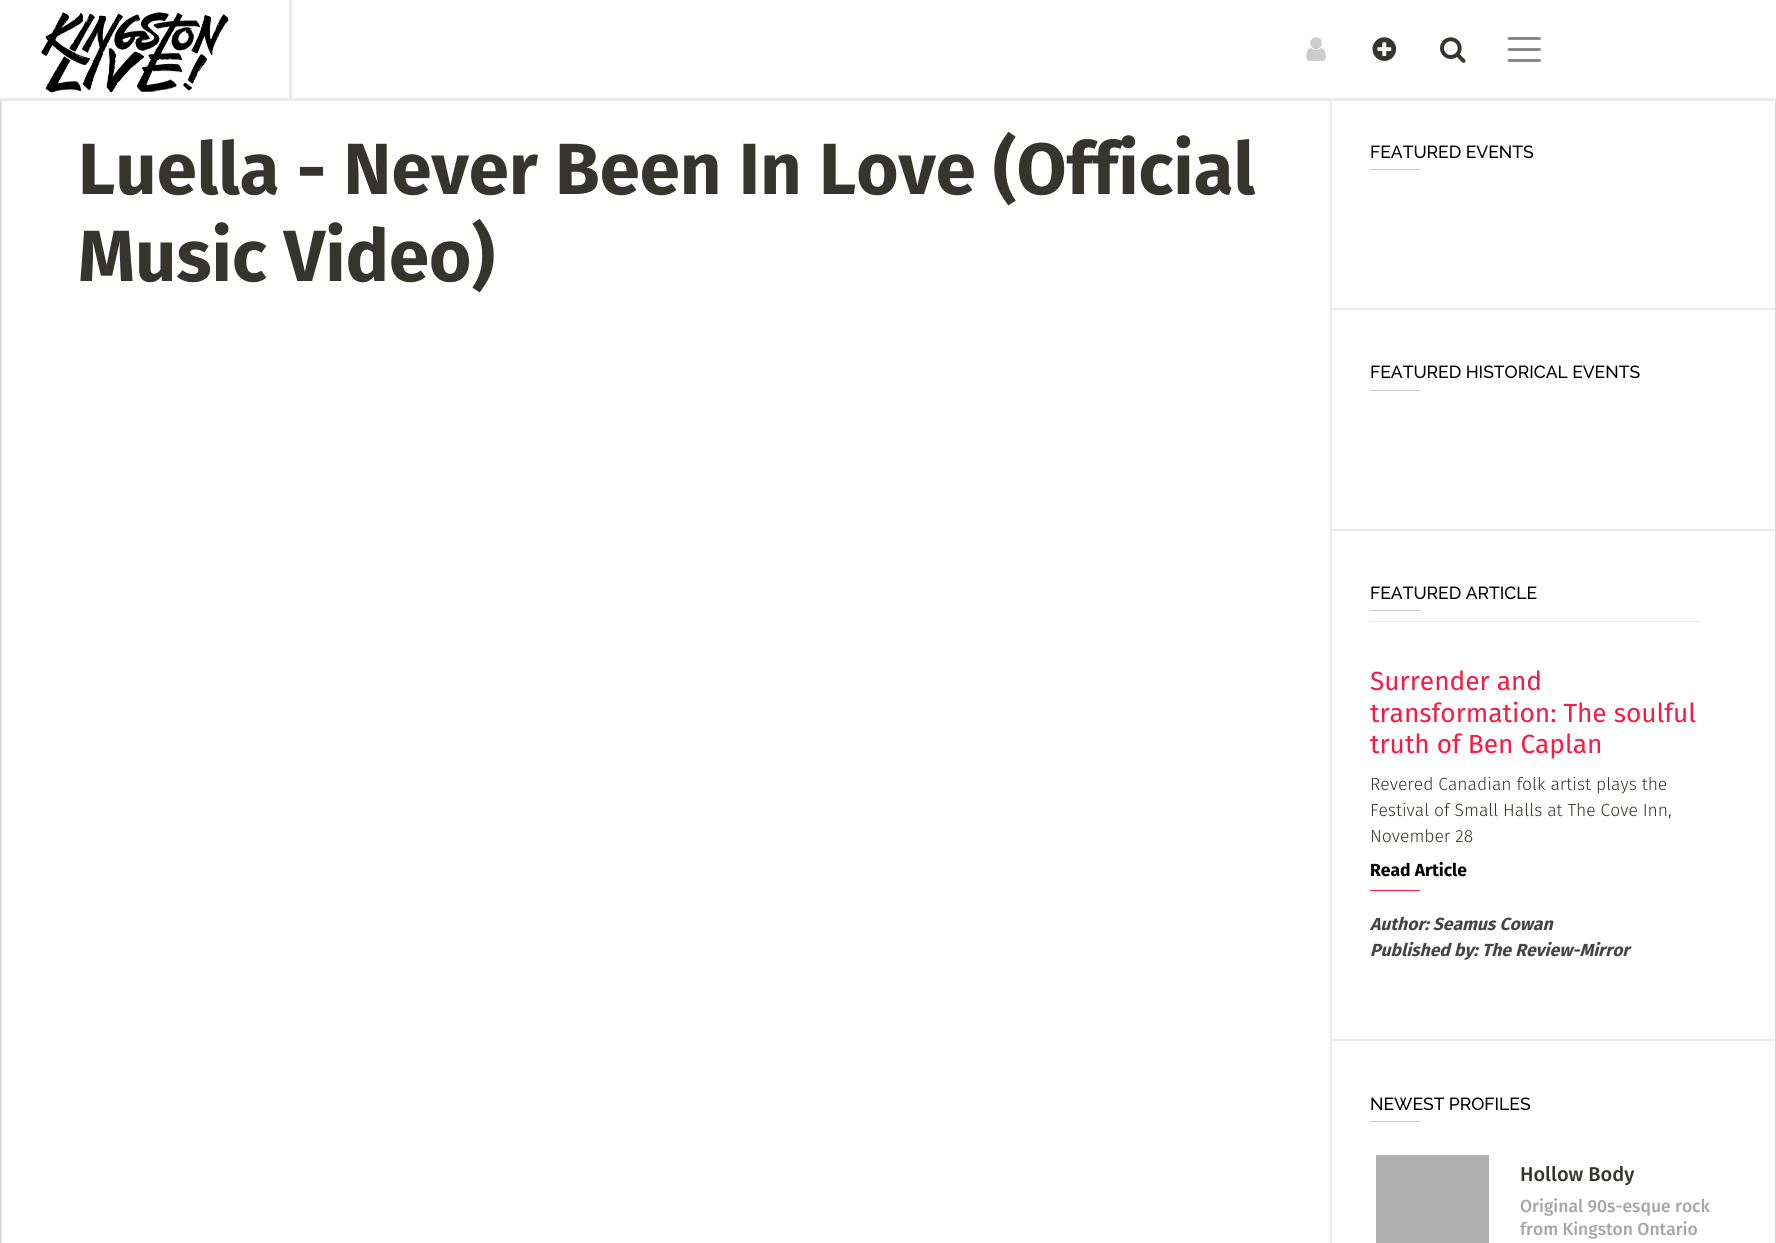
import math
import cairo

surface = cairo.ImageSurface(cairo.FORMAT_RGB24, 1776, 1243)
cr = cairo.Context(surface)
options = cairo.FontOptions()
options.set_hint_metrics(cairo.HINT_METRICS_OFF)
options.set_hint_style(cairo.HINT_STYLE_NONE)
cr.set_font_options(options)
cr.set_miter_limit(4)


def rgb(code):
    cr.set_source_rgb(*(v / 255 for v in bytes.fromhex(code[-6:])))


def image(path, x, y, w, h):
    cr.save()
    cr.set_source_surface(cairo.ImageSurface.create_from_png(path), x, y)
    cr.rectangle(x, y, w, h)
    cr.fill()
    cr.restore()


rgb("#ffffff")
cr.paint()
cr.rectangle(1.5, 88.5, 1329, 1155)
rgb("#ebebeb")
cr.set_line_width(1)
cr.stroke()
rgb("#ffffff")
cr.rectangle(1, 88, 1330, 10)
cr.fill()
rgb("#ebebeb")
cr.rectangle(0, 98, 1776, 3)
cr.fill()
image("img/1.png", 41, 12, 188, 81)
cr.rectangle(289, 0, 3, 98)
cr.fill()
image("img/2.png", 1306, 37, 20, 24)
image("img/3.png", 1372, 37, 25, 24)
image("img/4.png", 1440, 37, 26, 26)
cr.new_path()
cr.move_to(1509, 38.5)
cr.line_to(1539.5, 38.5)
cr.move_to(1509, 49.5)
cr.line_to(1539.5, 49.5)
cr.move_to(1509, 60.5)
cr.line_to(1539.5, 60.5)
rgb("#808080")
cr.set_line_width(2.8)
cr.set_line_cap(cairo.LINE_CAP_ROUND)
cr.stroke()
for x, y, w, h, color in [
    (1775, 101, 1, 1142, "#d7d7d7"),
    (0, 101, 1, 1142, "#d7d7d7"),
    (1331, 308, 444, 2, "#ebebeb"),
    (1331, 101, 1, 208, "#ebebeb"),
    (1370, 169, 50, 1, "#cacaca"),
    (1331, 529, 444, 2, "#ebebeb"),
    (1331, 309, 1, 221, "#ebebeb"),
    (1370, 390, 50, 1, "#cacaca"),
    (1331, 1039, 444, 2, "#ebebeb"),
    (1331, 530, 1, 713, "#ebebeb"),
    (1370, 610, 50, 1, "#cacaca"),
    (1370, 621, 330, 1, "#ebebeb"),
    (1370, 890, 50, 1, "#f91942"),
    (1370, 1121, 50, 1, "#cacaca"),
    (1376, 1155, 113, 88, "#afafaf"),
]:
    rgb(color)
    cr.rectangle(x, y, w, h)
    cr.fill()
cr.select_font_face("Fira Sans", cairo.FONT_SLANT_NORMAL, cairo.FONT_WEIGHT_BOLD)
cr.set_font_size(72.5)
rgb("#36342e")
cr.move_to(78, 194)
cr.show_text("Luella - Never Been In Love (Official")
cr.move_to(78, 281)
cr.show_text("Music Video)")
cr.select_font_face("Raleway Thin")
cr.set_font_size(17.5)
rgb("#000000")
for x, y, s in [
    (1370, 158, "FEATURED EVENTS"),
    (1370, 378, "FEATURED HISTORICAL EVENTS"),
    (1370, 599, "FEATURED ARTICLE"),
]:
    cr.move_to(x, y)
    cr.show_text(s)
cr.select_font_face("Fira Sans")
cr.set_font_size(26.25)
rgb("#f91942")
for x, y, s in [
    (1370, 690, "Surrender and"),
    (1370, 722, "transformation: The soulful"),
    (1370, 753, "truth of Ben Caplan"),
]:
    cr.move_to(x, y)
    cr.show_text(s)
cr.select_font_face("Fira Sans Light")
cr.set_font_size(17.5)
rgb("#36342e")
for x, y, s in [
    (1370, 790, "Revered Canadian folk artist plays the"),
    (1370, 816, "Festival of Small Halls at The Cove Inn,"),
    (1370, 842, "November 28"),
]:
    cr.move_to(x, y)
    cr.show_text(s)
cr.select_font_face("Fira Sans", cairo.FONT_SLANT_NORMAL, cairo.FONT_WEIGHT_BOLD)
rgb("#000000")
cr.move_to(1370, 876)
cr.show_text("Read Article")
cr.select_font_face("Fira Sans", cairo.FONT_SLANT_ITALIC, cairo.FONT_WEIGHT_BOLD)
rgb("#444444")
cr.move_to(1370, 930)
cr.show_text("Author: Seamus Cowan")
cr.move_to(1370, 956)
cr.show_text("Published by: The Review-Mirror")
cr.select_font_face("Raleway Thin")
rgb("#000000")
cr.move_to(1370, 1110)
cr.show_text("NEWEST PROFILES")
cr.select_font_face("Fira Sans Medium")
cr.set_font_size(20)
rgb("#36342e")
cr.move_to(1520, 1181)
cr.show_text("Hollow Body")
cr.set_font_size(17.5)
rgb("#a6a6a6")
cr.move_to(1520, 1212)
cr.show_text("Original 90s-esque rock")
cr.move_to(1520, 1235)
cr.show_text("from Kingston Ontario")
surface.write_to_png("page.png")
